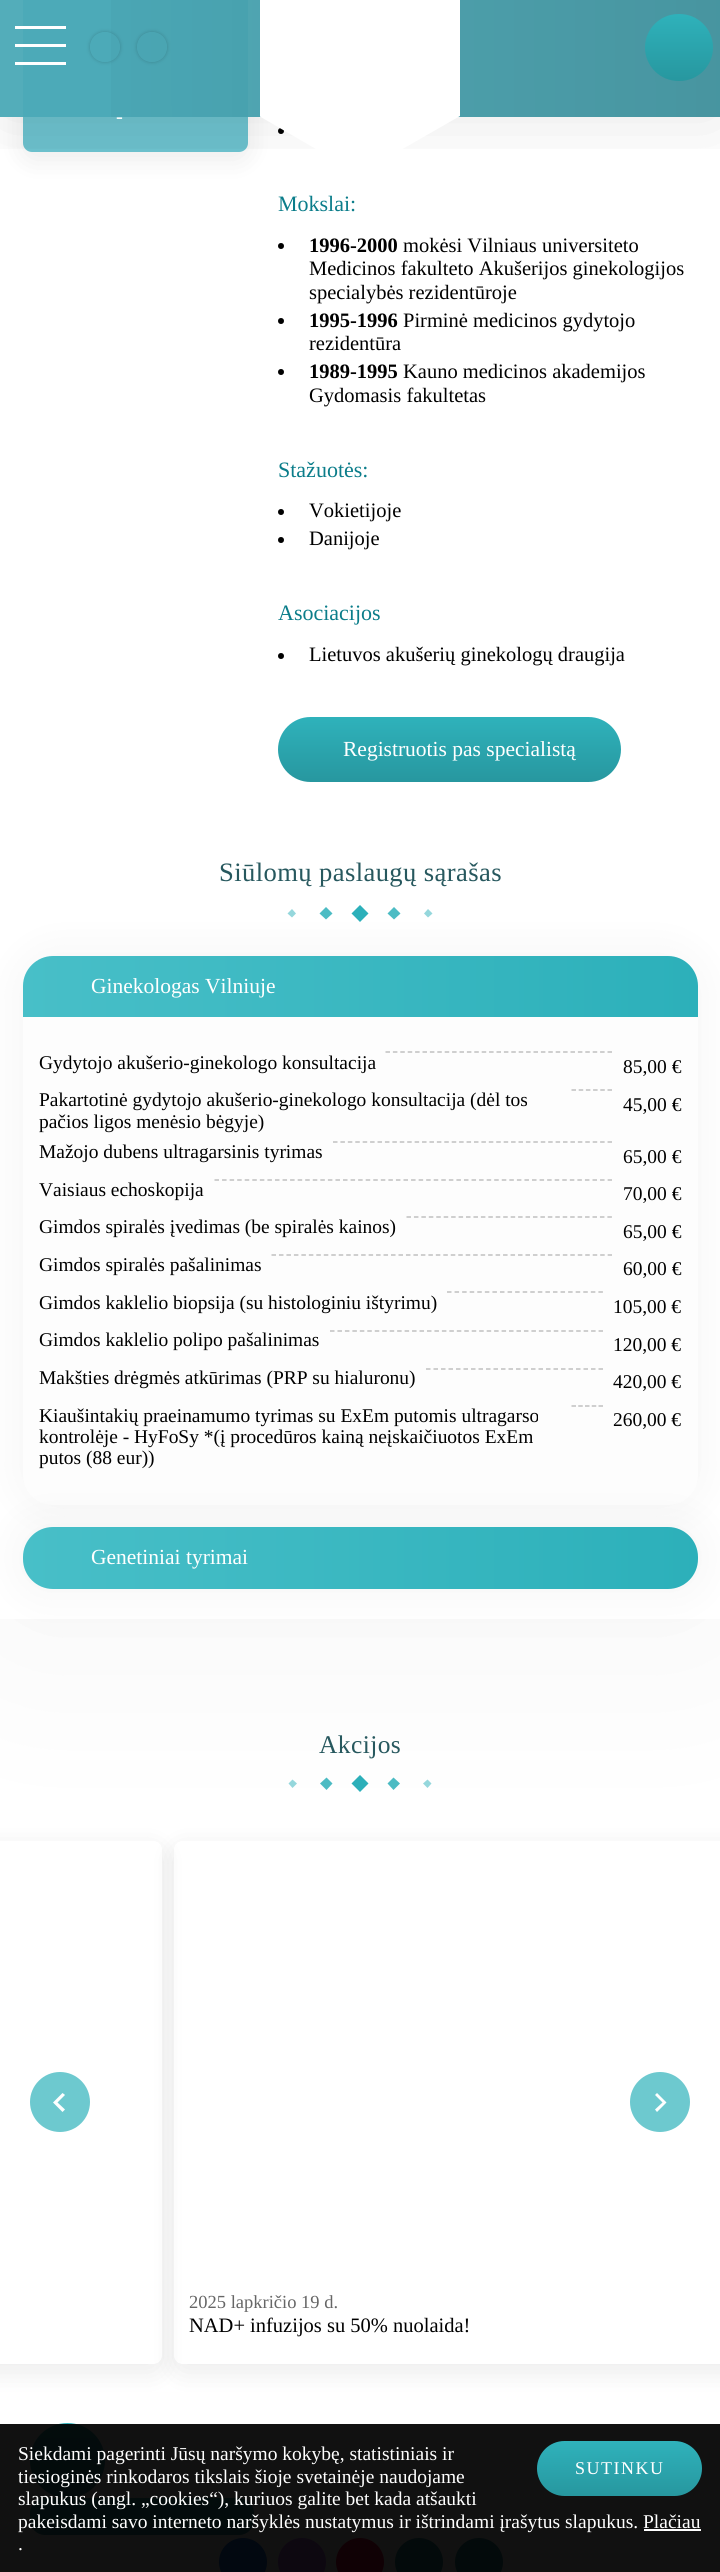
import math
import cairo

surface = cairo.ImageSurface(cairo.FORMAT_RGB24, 720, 2572)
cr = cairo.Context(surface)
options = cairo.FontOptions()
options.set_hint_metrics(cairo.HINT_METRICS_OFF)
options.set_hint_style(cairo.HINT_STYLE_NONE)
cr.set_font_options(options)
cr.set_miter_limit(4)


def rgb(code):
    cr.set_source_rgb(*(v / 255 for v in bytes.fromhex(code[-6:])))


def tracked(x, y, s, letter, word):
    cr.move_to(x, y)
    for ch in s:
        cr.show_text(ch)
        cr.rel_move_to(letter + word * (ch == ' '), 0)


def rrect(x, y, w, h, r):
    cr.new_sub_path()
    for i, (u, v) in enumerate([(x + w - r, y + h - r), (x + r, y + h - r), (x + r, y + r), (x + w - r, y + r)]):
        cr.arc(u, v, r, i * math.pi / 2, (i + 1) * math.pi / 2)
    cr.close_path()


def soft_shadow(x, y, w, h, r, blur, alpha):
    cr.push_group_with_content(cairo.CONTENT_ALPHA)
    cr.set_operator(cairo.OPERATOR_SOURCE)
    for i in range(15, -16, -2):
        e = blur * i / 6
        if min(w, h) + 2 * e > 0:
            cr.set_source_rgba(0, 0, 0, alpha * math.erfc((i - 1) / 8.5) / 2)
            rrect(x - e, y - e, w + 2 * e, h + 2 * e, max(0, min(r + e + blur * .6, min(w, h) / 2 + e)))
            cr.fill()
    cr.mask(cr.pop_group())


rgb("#ffffff")
cr.paint()
rgb("#96d8dd")
cr.new_path()
cr.move_to(292.5, 1779.5)
cr.line_to(297, 1783.5)
cr.line_to(292.5, 1788)
cr.line_to(288.5, 1783.5)
cr.close_path()
cr.fill()
rgb("#4cbcc4")
cr.new_path()
cr.move_to(326.5, 1777.5)
cr.line_to(332.5, 1783.5)
cr.line_to(326.5, 1790)
cr.line_to(320, 1783.5)
cr.close_path()
cr.fill()
rgb("#2cb0ba")
cr.new_path()
cr.move_to(360, 1775)
cr.line_to(368.5, 1783.5)
cr.line_to(360, 1792)
cr.line_to(351.5, 1783.5)
cr.close_path()
cr.fill()
rgb("#4cbcc4")
cr.new_path()
cr.move_to(393.5, 1777.5)
cr.line_to(400, 1783.5)
cr.line_to(393.5, 1790)
cr.line_to(387.5, 1783.5)
cr.close_path()
cr.fill()
rgb("#96d8dd")
cr.new_path()
cr.move_to(427.5, 1779.5)
cr.line_to(431.5, 1783.5)
cr.line_to(427.5, 1788)
cr.line_to(423, 1783.5)
cr.close_path()
cr.fill()
rgb("#000000")
soft_shadow(0, -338, 720, 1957, 0, 112.5, 0.05)
rgb("#ffffff")
cr.rectangle(0, 0, 720, 1619)
cr.fill()
rgb("#000000")
cr.arc(281, 131, 3, 0, 2 * math.pi)
cr.fill()
rgb("#000000")
soft_shadow(23, -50, 225, 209, 9, 13.5, 0.08)
rgb("#6cc0cc")
rrect(23, -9, 225, 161, 9)
cr.fill()
cr.save()
cr.rectangle(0, 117, 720, 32)
cr.clip()
rgb("#000000")
soft_shadow(0, 0, 720, 117, 0, 37.5, 0.1)
cr.restore()
cr.set_source_rgba(0.294, 0.663, 0.718, 0.95)
cr.rectangle(0, 0, 720, 117)
cr.fill()
gradient = cairo.LinearGradient(0, 59, 720, 58)
gradient.add_color_stop_rgba(0, 0, 0, 0, 0)
gradient.add_color_stop_rgba(1, 0, 0, 0, 0.14)
cr.set_source(gradient)
cr.rectangle(111, 0, 609, 117)
cr.fill()
cr.save()
cr.rectangle(260, 0, 202, 173)
cr.clip()
rgb("#ffffff")
cr.new_path()
cr.move_to(259, -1)
cr.line_to(259, 116)
cr.line_to(359, 174)
cr.line_to(460, 116)
cr.line_to(460, -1)
cr.line_to(359, -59)
cr.close_path()
cr.fill()
cr.restore()
for x, y, w, h, color in [
    (15, 26, 51, 3, "#ffffff"),
    (15, 44, 51, 3, "#ffffff"),
    (15, 62, 51, 3, "#ffffff"),
]:
    rgb(color)
    cr.rectangle(x, y, w, h)
    cr.fill()
cr.save()
cr.set_fill_rule(cairo.FILL_RULE_EVEN_ODD)
cr.new_path()
cr.move_to(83, 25)
cr.line_to(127, 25)
cr.line_to(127, 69)
cr.line_to(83, 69)
cr.close_path()
cr.move_to(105, 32)
cr.curve_to(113.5, 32, 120, 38.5, 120, 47)
cr.curve_to(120, 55.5, 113.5, 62, 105, 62)
cr.curve_to(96.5, 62, 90, 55.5, 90, 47)
cr.curve_to(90, 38.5, 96.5, 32, 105, 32)
cr.close_path()
cr.clip()
rgb("#000000")
soft_shadow(90, 32, 30, 30, 15, 2, 0.2)
cr.restore()
cr.save()
cr.set_fill_rule(cairo.FILL_RULE_EVEN_ODD)
cr.new_path()
cr.move_to(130, 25)
cr.line_to(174, 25)
cr.line_to(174, 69)
cr.line_to(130, 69)
cr.close_path()
cr.move_to(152, 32)
cr.curve_to(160.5, 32, 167, 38.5, 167, 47)
cr.curve_to(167, 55.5, 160.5, 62, 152, 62)
cr.curve_to(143.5, 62, 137, 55.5, 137, 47)
cr.curve_to(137, 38.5, 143.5, 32, 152, 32)
cr.close_path()
cr.clip()
rgb("#000000")
soft_shadow(137, 32, 30, 30, 15, 2, 0.2)
cr.restore()
gradient = cairo.LinearGradient(679, 13, 679, 81)
gradient.add_color_stop_rgba(0, 0.184, 0.698, 0.733, 1)
gradient.add_color_stop_rgba(1, 0.153, 0.592, 0.624, 1)
cr.set_source(gradient)
rrect(645, 14, 68, 67, 33.5)
cr.fill()
rgb("#000000")
cr.arc(281, 246, 3, 0, 2 * math.pi)
cr.fill()
cr.arc(281, 321, 3, 0, 2 * math.pi)
cr.fill()
cr.arc(281, 372, 3, 0, 2 * math.pi)
cr.fill()
cr.arc(281, 512, 3, 0, 2 * math.pi)
cr.fill()
cr.arc(281, 540, 3, 0, 2 * math.pi)
cr.fill()
cr.arc(281, 656, 3, 0, 2 * math.pi)
cr.fill()
gradient = cairo.LinearGradient(449, 717, 449, 782)
gradient.add_color_stop_rgba(0, 0.184, 0.698, 0.733, 1)
gradient.add_color_stop_rgba(1, 0.153, 0.592, 0.624, 1)
cr.set_source(gradient)
rrect(278, 717, 343, 65, 32.5)
cr.fill()
rgb("#000000")
soft_shadow(23, 956, 675, 549, 30, 22.5, 0.05)
rgb("#95d7dc")
cr.new_path()
cr.move_to(292, 909)
cr.line_to(296, 913.5)
cr.line_to(292, 917.5)
cr.line_to(287.5, 913.5)
cr.close_path()
cr.fill()
rgb("#4cbcc4")
cr.new_path()
cr.move_to(326, 907)
cr.line_to(332.5, 913.5)
cr.line_to(326, 919.5)
cr.line_to(319.5, 913.5)
cr.close_path()
cr.fill()
rgb("#2cb0ba")
cr.new_path()
cr.move_to(360, 905)
cr.line_to(368.5, 913.5)
cr.line_to(360, 922)
cr.line_to(351.5, 913.5)
cr.close_path()
cr.fill()
rgb("#4cbcc4")
cr.new_path()
cr.move_to(394, 907)
cr.line_to(400.5, 913.5)
cr.line_to(394, 919.5)
cr.line_to(387.5, 913.5)
cr.close_path()
cr.fill()
rgb("#95d7dc")
cr.new_path()
cr.move_to(428, 909)
cr.line_to(432.5, 913.5)
cr.line_to(428, 917.5)
cr.line_to(424, 913.5)
cr.close_path()
cr.fill()
rgb("#fdfdfd")
rrect(23, 956, 675, 549, 30)
cr.fill()
gradient = cairo.LinearGradient(23, 986, 698, 986)
gradient.add_color_stop_rgba(0, 0.282, 0.749, 0.784, 1)
gradient.add_color_stop_rgba(1, 0.173, 0.69, 0.729, 1)
cr.set_source(gradient)
cr.new_path()
cr.move_to(53, 956)
cr.line_to(668, 956)
cr.curve_to(684.5, 956, 698, 969.5, 698, 986)
cr.line_to(698, 1017)
cr.line_to(23, 1017)
cr.line_to(23, 986)
cr.curve_to(23, 969.5, 36.5, 956, 53, 956)
cr.close_path()
cr.fill()
cr.new_path()
cr.move_to(385.5, 1052)
cr.line_to(612, 1052)
rgb("#bfbfbf")
cr.set_line_width(1.5)
cr.set_dash([4.5, 2.9])
cr.stroke()
cr.new_path()
cr.move_to(571.5, 1090)
cr.line_to(612, 1090)
cr.set_dash([4.5, 2.7])
cr.stroke()
cr.new_path()
cr.move_to(333, 1142)
cr.line_to(612, 1142)
cr.set_dash([4.5, 2.92])
cr.stroke()
cr.new_path()
cr.move_to(214.5, 1180)
cr.line_to(612, 1180)
cr.set_dash([4.5, 3.06])
cr.stroke()
cr.new_path()
cr.move_to(406.5, 1217)
cr.line_to(612, 1217)
cr.set_dash([4.5, 2.94])
cr.stroke()
cr.new_path()
cr.move_to(271.5, 1255)
cr.line_to(612, 1255)
cr.set_dash([4.5, 2.97])
cr.stroke()
cr.new_path()
cr.move_to(447, 1292)
cr.line_to(603, 1292)
cr.set_dash([4.5, 3.07])
cr.stroke()
cr.new_path()
cr.move_to(330, 1331)
cr.line_to(603, 1331)
cr.set_dash([4.5, 2.96])
cr.stroke()
cr.new_path()
cr.move_to(426, 1369)
cr.line_to(603, 1369)
cr.set_dash([4.5, 3])
cr.stroke()
cr.new_path()
cr.move_to(571.5, 1406)
cr.line_to(603, 1406)
cr.set_dash([4.5, 2.25])
cr.stroke()
rgb("#000000")
soft_shadow(23, 1527, 675, 62, 30, 22.5, 0.05)
gradient = cairo.LinearGradient(23, 1558, 698, 1558)
gradient.add_color_stop_rgba(0, 0.282, 0.749, 0.784, 1)
gradient.add_color_stop_rgba(1, 0.173, 0.69, 0.729, 1)
cr.set_source(gradient)
rrect(23, 1527, 675, 62, 30)
cr.fill()
cr.save()
cr.set_fill_rule(cairo.FILL_RULE_EVEN_ODD)
cr.new_path()
cr.move_to(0, 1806)
cr.line_to(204, 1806)
cr.line_to(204, 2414)
cr.line_to(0, 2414)
cr.close_path()
cr.move_to(-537, 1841)
cr.line_to(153, 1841)
cr.curve_to(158, 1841, 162, 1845, 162, 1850)
cr.line_to(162, 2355)
cr.curve_to(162, 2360, 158, 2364, 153, 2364)
cr.line_to(-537, 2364)
cr.curve_to(-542, 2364, -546, 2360, -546, 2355)
cr.line_to(-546, 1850)
cr.curve_to(-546, 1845, -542, 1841, -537, 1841)
cr.close_path()
cr.clip()
rgb("#000000")
soft_shadow(-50, 1848, 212, 524, 9, 13.5, 0.08)
cr.restore()
rgb("#6dc9cf")
cr.arc(60, 2102, 30, 0, 2 * math.pi)
cr.fill()
rgb("#ffffff")
cr.new_path()
cr.move_to(62.5, 2093)
cr.line_to(65, 2095)
cr.line_to(57.5, 2102.5)
cr.line_to(65, 2109.5)
cr.line_to(62.5, 2112)
cr.line_to(53, 2102.5)
cr.close_path()
cr.fill()
cr.save()
cr.set_fill_rule(cairo.FILL_RULE_EVEN_ODD)
cr.new_path()
cr.move_to(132, 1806)
cr.line_to(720, 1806)
cr.line_to(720, 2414)
cr.line_to(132, 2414)
cr.close_path()
cr.move_to(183, 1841)
cr.line_to(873, 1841)
cr.curve_to(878, 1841, 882, 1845, 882, 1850)
cr.line_to(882, 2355)
cr.curve_to(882, 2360, 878, 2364, 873, 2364)
cr.line_to(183, 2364)
cr.curve_to(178, 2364, 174, 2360, 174, 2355)
cr.line_to(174, 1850)
cr.curve_to(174, 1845, 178, 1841, 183, 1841)
cr.close_path()
cr.clip()
rgb("#000000")
soft_shadow(174, 1848, 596, 524, 9, 13.5, 0.08)
cr.restore()
rgb("#6dc9cf")
cr.arc(660, 2102, 30, 0, 2 * math.pi)
cr.fill()
rgb("#ffffff")
cr.new_path()
cr.move_to(657, 2093)
cr.line_to(655, 2095)
cr.line_to(662.5, 2102.5)
cr.line_to(655, 2109.5)
cr.line_to(657, 2112)
cr.line_to(666.5, 2102.5)
cr.close_path()
cr.fill()
rgb("#fafafa")
cr.rectangle(0, 2514, 720, 2)
cr.fill()
rgb("#1773ea")
cr.arc(243, 2562, 24, 0, 2 * math.pi)
cr.fill()
rgb("#c871f7")
cr.arc(302, 2562, 24, 0, 2 * math.pi)
cr.fill()
rgb("#f60c44")
cr.arc(360, 2562, 24, 0, 2 * math.pi)
cr.fill()
rgb("#27979f")
cr.arc(419, 2562, 24, 0, 2 * math.pi)
cr.fill()
cr.arc(479, 2562, 24, 0, 2 * math.pi)
cr.fill()
gradient = cairo.LinearGradient(68, 2423, 68, 2498)
gradient.add_color_stop_rgba(0, 0.184, 0.698, 0.733, 1)
gradient.add_color_stop_rgba(1, 0.153, 0.592, 0.624, 1)
cr.set_source(gradient)
cr.arc(67.5, 2460.5, 37.5, 0, 2 * math.pi)
cr.fill()
gradient = cairo.LinearGradient(142, 2498, 142, 2535)
gradient.add_color_stop_rgba(0, 0.184, 0.698, 0.733, 1)
gradient.add_color_stop_rgba(1, 0.153, 0.592, 0.624, 1)
cr.set_source(gradient)
rrect(30, 2498, 224, 37, 15)
cr.fill()
cr.set_source_rgba(0, 0, 0, 0.93)
cr.rectangle(0, 2424, 720, 148)
cr.fill()
gradient = cairo.LinearGradient(620, 2441, 620, 2496)
gradient.add_color_stop_rgba(0, 0.184, 0.698, 0.733, 1)
gradient.add_color_stop_rgba(1, 0.153, 0.592, 0.624, 1)
cr.set_source(gradient)
rrect(537, 2441, 165, 55, 27.5)
cr.fill()
rgb("#ffffff")
cr.rectangle(644, 2529, 57, 2)
cr.fill()
cr.select_font_face("Liberation Serif")
cr.set_font_size(20.5)
cr.move_to(116, 123)
cr.show_text("-")
cr.set_font_size(22)
rgb("#0b7d8a")
cr.move_to(278, 211)
cr.show_text("Mokslai:")
cr.select_font_face("Liberation Serif", cairo.FONT_SLANT_NORMAL, cairo.FONT_WEIGHT_BOLD)
cr.set_font_size(20.5)
rgb("#000000")
cr.move_to(309, 252)
cr.show_text("1996-2000")
cr.select_font_face("Liberation Serif")
for x, y, s in [
    (403, 252, "mokėsi Vilniaus universiteto"),
    (309, 275, "Medicinos fakulteto Akušerijos ginekologijos"),
    (309, 299, "specialybės rezidentūroje"),
]:
    cr.move_to(x, y)
    cr.show_text(s)
cr.select_font_face("Liberation Serif", cairo.FONT_SLANT_NORMAL, cairo.FONT_WEIGHT_BOLD)
cr.move_to(309, 327)
cr.show_text("1995-1996")
cr.select_font_face("Liberation Serif")
cr.move_to(403, 327)
cr.show_text("Pirminė medicinos gydytojo")
cr.move_to(309, 350)
cr.show_text("rezidentūra")
cr.select_font_face("Liberation Serif", cairo.FONT_SLANT_NORMAL, cairo.FONT_WEIGHT_BOLD)
cr.move_to(309, 378)
cr.show_text("1989-1995")
cr.select_font_face("Liberation Serif")
cr.move_to(403, 378)
cr.show_text("Kauno medicinos akademijos")
cr.move_to(309, 402)
cr.show_text("Gydomasis fakultetas")
cr.set_font_size(22)
rgb("#0b7d8a")
cr.move_to(278, 477)
cr.show_text("Stažuotės:")
cr.set_font_size(20.5)
rgb("#000000")
cr.move_to(309, 517)
cr.show_text("Vokietijoje")
cr.move_to(309, 545)
cr.show_text("Danijoje")
cr.set_font_size(22)
rgb("#0b7d8a")
cr.move_to(278, 620)
cr.show_text("Asociacijos")
cr.set_font_size(20.5)
rgb("#000000")
cr.move_to(309, 661)
cr.show_text("Lietuvos akušerių ginekologų draugija")
cr.set_font_size(21.5)
rgb("#ffffff")
cr.move_to(343, 756)
cr.show_text("Registruotis pas specialistą")
cr.set_font_size(26.6)
rgb("#27585e")
tracked(219, 881, "Siūlomų paslaugų sąrašas", 0.4, 0)
cr.set_font_size(21.5)
rgb("#ffffff")
cr.move_to(91, 993)
cr.show_text("Ginekologas Vilniuje")
cr.set_font_size(19.45)
rgb("#000000")
for x, y, s in [
    (39, 1069, "Gydytojo akušerio-ginekologo konsultacija"),
    (623, 1073, "85,00 €"),
    (39, 1106, "Pakartotinė gydytojo akušerio-ginekologo konsultacija (dėl tos"),
    (39, 1128, "pačios ligos menėsio bėgyje)"),
    (623, 1111, "45,00 €"),
    (39, 1158, "Mažojo dubens ultragarsinis tyrimas"),
    (623, 1163, "65,00 €"),
    (39, 1196, "Vaisiaus echoskopija"),
    (623, 1200, "70,00 €"),
    (39, 1233, "Gimdos spiralės įvedimas (be spiralės kainos)"),
    (623, 1238, "65,00 €"),
    (39, 1271, "Gimdos spiralės pašalinimas"),
    (623, 1275, "60,00 €"),
    (39, 1309, "Gimdos kaklelio biopsija (su histologiniu ištyrimu)"),
    (613, 1313, "105,00 €"),
    (39, 1346, "Gimdos kaklelio polipo pašalinimas"),
    (613, 1351, "120,00 €"),
    (39, 1384, "Makšties drėgmės atkūrimas (PRP su hialuronu)"),
    (613, 1388, "420,00 €"),
    (39, 1422, "Kiaušintakių praeinamumo tyrimas su ExEm putomis ultragarso"),
    (39, 1443, "kontrolėje - HyFoSy *(į procedūros kainą neįskaičiuotos ExEm"),
    (39, 1464, "putos (88 eur))"),
    (613, 1426, "260,00 €"),
]:
    cr.move_to(x, y)
    cr.show_text(s)
cr.set_font_size(21.5)
rgb("#ffffff")
cr.move_to(91, 1564)
cr.show_text("Genetiniai tyrimai")
cr.set_font_size(25.5)
rgb("#27585e")
tracked(319, 1753, "Akcijos", 0.4, 0)
cr.set_font_size(18.5)
rgb("#666666")
cr.move_to(189, 2308)
cr.show_text("2025 lapkričio 19 d.")
cr.set_font_size(20.5)
rgb("#000000")
cr.move_to(189, 2332)
cr.show_text("NAD+ infuzijos su 50% nuolaida!")
cr.set_font_size(19.5)
rgb("#ffffff")
cr.move_to(18, 2460)
cr.show_text("Siekdami pagerinti Jūsų naršymo kokybę, statistiniais ir")
cr.move_to(18, 2483)
cr.show_text("tiesioginės rinkodaros tikslais šioje svetainėje naudojame")
cr.set_font_size(18)
tracked(575, 2474, "SUTINKU", 1.5, 0)
cr.set_font_size(19.5)
for x, y, s in [
    (18, 2505, "slapukus (angl. „cookies“), kuriuos galite bet kada atšaukti"),
    (18, 2528, "pakeisdami savo interneto naršyklės nustatymus ir ištrindami įrašytus slapukus. Plačiau"),
    (18, 2550, "."),
]:
    cr.move_to(x, y)
    cr.show_text(s)
surface.write_to_png("page.png")
